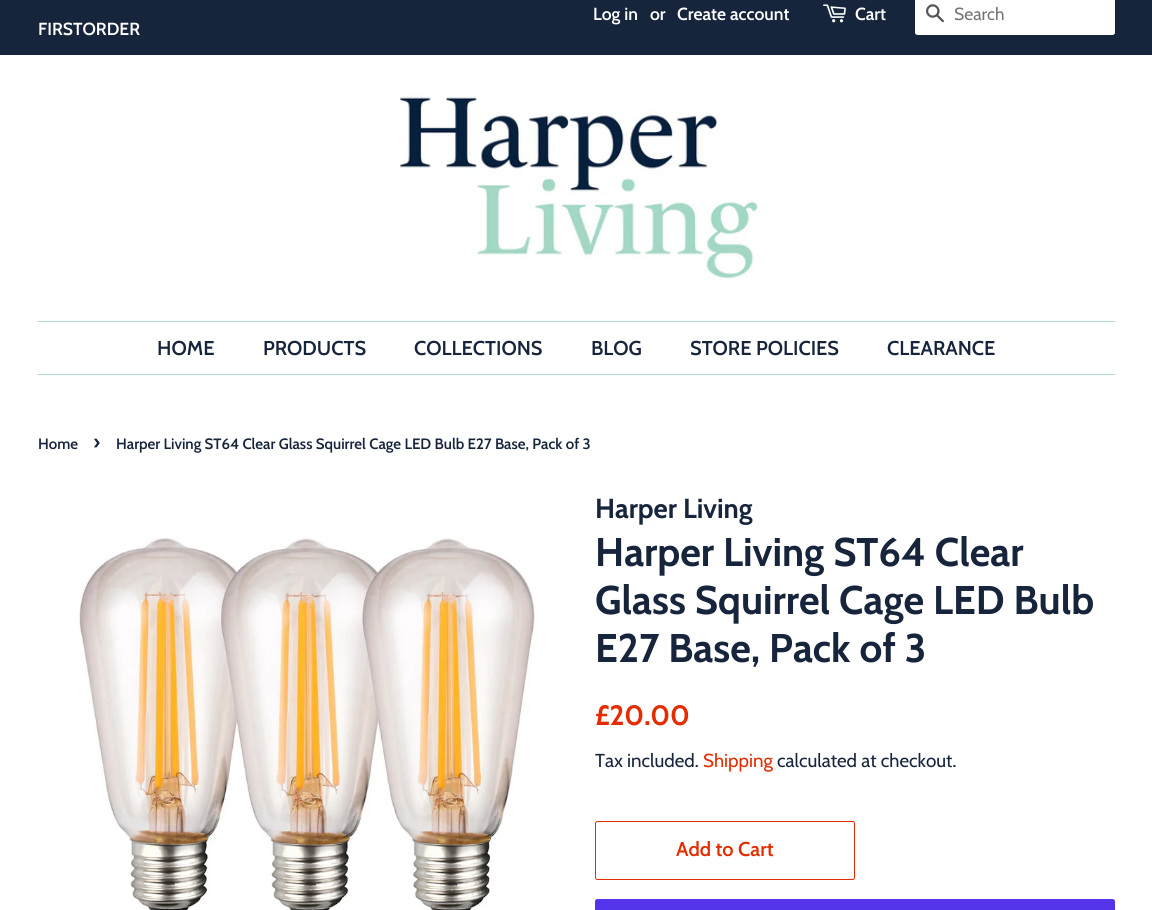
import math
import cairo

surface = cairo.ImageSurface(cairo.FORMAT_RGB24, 1152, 910)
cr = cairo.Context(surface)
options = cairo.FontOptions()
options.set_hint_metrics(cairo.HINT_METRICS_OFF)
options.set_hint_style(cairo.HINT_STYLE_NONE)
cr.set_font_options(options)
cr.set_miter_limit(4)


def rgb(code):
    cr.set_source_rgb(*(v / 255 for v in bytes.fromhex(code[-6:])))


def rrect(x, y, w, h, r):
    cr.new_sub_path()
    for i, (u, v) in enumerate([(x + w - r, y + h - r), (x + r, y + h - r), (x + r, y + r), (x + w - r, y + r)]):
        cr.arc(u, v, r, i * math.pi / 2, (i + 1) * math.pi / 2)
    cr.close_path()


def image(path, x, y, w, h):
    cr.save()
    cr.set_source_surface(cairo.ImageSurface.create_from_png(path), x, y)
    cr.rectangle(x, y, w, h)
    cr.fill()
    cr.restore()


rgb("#ffffff")
cr.paint()
rgb("#16243c")
cr.rectangle(0, 0, 1152, 55)
cr.fill()
image("img/1.png", 823, 4, 23, 19)
rgb("#ffffff")
rrect(915, -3, 200, 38, 2.5)
cr.fill()
image("img/2.png", 926, 4, 18, 19)
image("img/3.png", 400, 95, 358, 184)
rgb("#b1d9c7")
cr.rectangle(38, 321, 1077, 1)
cr.fill()
cr.rectangle(38, 374, 1077, 1)
cr.fill()
image("img/4.png", 79, 538, 456, 372)
rrect(595.5, 821.5, 259, 58, 2)
rgb("#e42c00")
cr.set_line_width(1)
cr.stroke()
rgb("#5433eb")
rrect(595, 899, 520, 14, 2.5)
cr.fill()
cr.select_font_face("Cabin SemiBold")
cr.set_font_size(17.5)
rgb("#ffffff")
for x, y, s in [
    (593, 20, "Log in"),
    (650, 20, "or"),
    (677, 20, "Create account"),
    (855, 20, "Cart"),
]:
    cr.move_to(x, y)
    cr.show_text(s)
cr.select_font_face("Cabin")
rgb("#757575")
cr.move_to(954, 20)
cr.show_text("Search")
cr.select_font_face("Cabin SemiBold")
rgb("#ffffff")
cr.move_to(38, 35)
cr.show_text("FIRSTORDER")
cr.set_font_size(20)
rgb("#16243c")
for x, y, s in [
    (157, 355, "HOME"),
    (263, 355, "PRODUCTS"),
    (414, 355, "COLLECTIONS"),
    (591, 355, "BLOG"),
    (690, 355, "STORE POLICIES"),
    (887, 355, "CLEARANCE"),
]:
    cr.move_to(x, y)
    cr.show_text(s)
cr.set_font_size(15)
cr.move_to(38, 449)
cr.show_text("Home")
cr.set_font_size(21)
cr.move_to(93, 449)
cr.show_text("›")
cr.set_font_size(15)
cr.move_to(116, 449)
cr.show_text("Harper Living ST64 Clear Glass Squirrel Cage LED Bulb E27 Base, Pack of 3")
cr.select_font_face("Cabin", cairo.FONT_SLANT_NORMAL, cairo.FONT_WEIGHT_BOLD)
cr.set_font_size(27.5)
cr.move_to(595, 518)
cr.show_text("Harper Living")
cr.set_font_size(40)
for x, y, s in [
    (595, 566, "Harper Living ST64 Clear"),
    (595, 614, "Glass Squirrel Cage LED Bulb"),
    (595, 662, "E27 Base, Pack of 3"),
]:
    cr.move_to(x, y)
    cr.show_text(s)
cr.set_font_size(28)
rgb("#e42c00")
cr.move_to(595, 725)
cr.show_text("£20.00")
cr.select_font_face("Cabin")
cr.set_font_size(18.75)
rgb("#16243c")
cr.move_to(595, 767)
cr.show_text("Tax included.")
rgb("#e42c00")
cr.move_to(703, 767)
cr.show_text("Shipping")
rgb("#16243c")
cr.move_to(777, 767)
cr.show_text("calculated at checkout.")
cr.select_font_face("Cabin SemiBold")
cr.set_font_size(20)
rgb("#e42c00")
cr.move_to(676, 856)
cr.show_text("Add to Cart")
surface.write_to_png("page.png")
